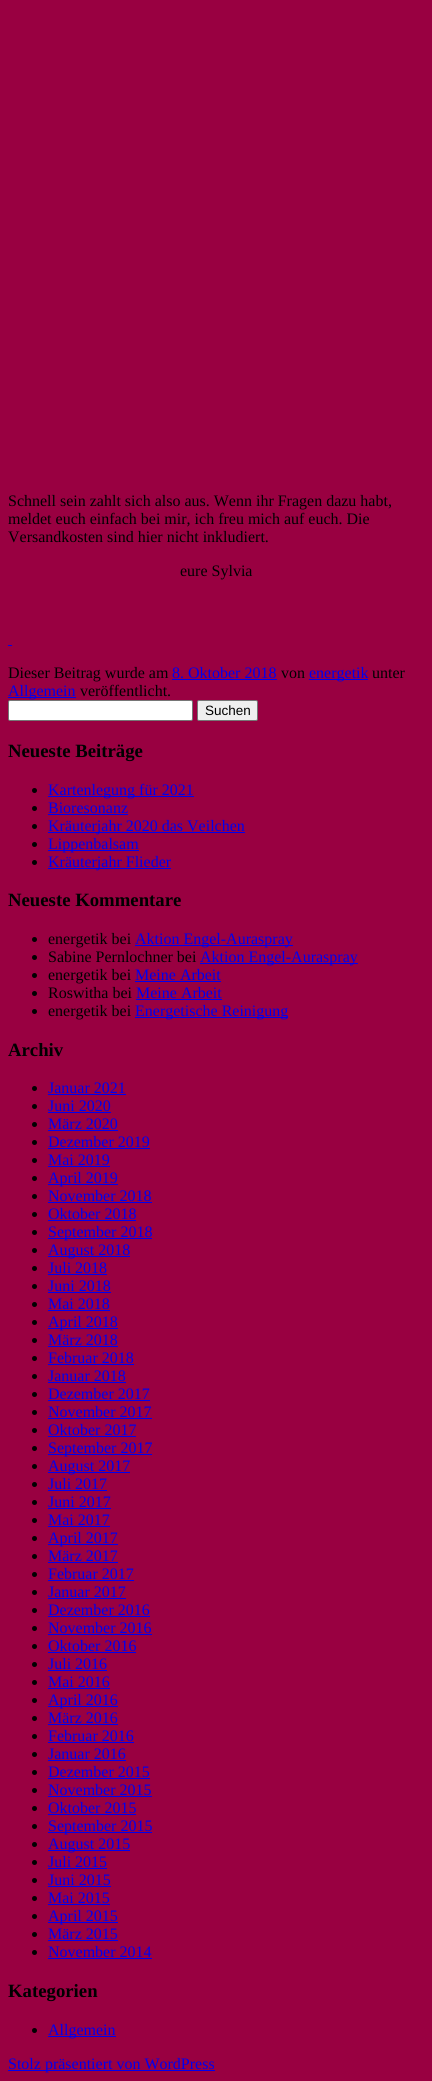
import math
import cairo

surface = cairo.ImageSurface(cairo.FORMAT_RGB24, 432, 2081)
cr = cairo.Context(surface)
options = cairo.FontOptions()
options.set_hint_metrics(cairo.HINT_METRICS_OFF)
options.set_hint_style(cairo.HINT_STYLE_NONE)
cr.set_font_options(options)
cr.set_miter_limit(4)


def rgb(code):
    cr.set_source_rgb(*(v / 255 for v in bytes.fromhex(code[-6:])))


def rrect(x, y, w, h, r):
    cr.new_sub_path()
    for i, (u, v) in enumerate([(x + w - r, y + h - r), (x + r, y + h - r), (x + r, y + r), (x + w - r, y + r)]):
        cr.arc(u, v, r, i * math.pi / 2, (i + 1) * math.pi / 2)
    cr.close_path()


rgb("#990041")
cr.paint()
for x, y, w, h, color in [
    (8, 645, 4, 1, "#0000ee"),
    (172, 679, 105, 1, "#0000ee"),
    (309, 679, 59, 1, "#0000ee"),
    (8, 697, 68, 1, "#0000ee"),
]:
    rgb(color)
    cr.rectangle(x, y, w, h)
    cr.fill()
rgb("#ffffff")
rrect(8.5, 700.5, 184, 20, 1.5)
cr.fill_preserve()
rgb("#767676")
cr.set_line_width(1)
cr.stroke()
rgb("#efefef")
rrect(197.5, 700.5, 60, 20, 1.5)
cr.fill_preserve()
rgb("#767676")
cr.stroke()
rgb("#000000")
cr.arc(34.5, 790.5, 2.5, 0, 2 * math.pi)
cr.fill()
rgb("#0000ee")
cr.rectangle(48, 796, 146, 1)
cr.fill()
rgb("#000000")
cr.arc(34.5, 808.5, 2.5, 0, 2 * math.pi)
cr.fill()
rgb("#0000ee")
cr.rectangle(48, 814, 80, 1)
cr.fill()
rgb("#000000")
cr.arc(34.5, 826.5, 2.5, 0, 2 * math.pi)
cr.fill()
rgb("#0000ee")
cr.rectangle(48, 832, 197, 1)
cr.fill()
rgb("#000000")
cr.arc(34.5, 844.5, 2.5, 0, 2 * math.pi)
cr.fill()
rgb("#0000ee")
cr.rectangle(48, 850, 91, 1)
cr.fill()
rgb("#000000")
cr.arc(34.5, 862.5, 2.5, 0, 2 * math.pi)
cr.fill()
rgb("#0000ee")
cr.rectangle(48, 868, 123, 1)
cr.fill()
rgb("#000000")
cr.arc(34.5, 939.5, 2.5, 0, 2 * math.pi)
cr.fill()
rgb("#0000ee")
cr.rectangle(135, 945, 158, 1)
cr.fill()
rgb("#000000")
cr.arc(34.5, 957.5, 2.5, 0, 2 * math.pi)
cr.fill()
rgb("#0000ee")
cr.rectangle(200, 963, 158, 1)
cr.fill()
rgb("#000000")
cr.arc(34.5, 975.5, 2.5, 0, 2 * math.pi)
cr.fill()
rgb("#0000ee")
cr.rectangle(135, 981, 86, 1)
cr.fill()
rgb("#000000")
cr.arc(34.5, 993.5, 2.5, 0, 2 * math.pi)
cr.fill()
rgb("#0000ee")
cr.rectangle(136, 999, 86, 1)
cr.fill()
rgb("#000000")
cr.arc(34.5, 1011.5, 2.5, 0, 2 * math.pi)
cr.fill()
rgb("#0000ee")
cr.rectangle(135, 1017, 153, 1)
cr.fill()
rgb("#000000")
cr.arc(34.5, 1088.5, 2.5, 0, 2 * math.pi)
cr.fill()
rgb("#0000ee")
cr.rectangle(48, 1094, 78, 1)
cr.fill()
rgb("#000000")
cr.arc(34.5, 1106.5, 2.5, 0, 2 * math.pi)
cr.fill()
rgb("#0000ee")
cr.rectangle(48, 1112, 63, 1)
cr.fill()
rgb("#000000")
cr.arc(34.5, 1124.5, 2.5, 0, 2 * math.pi)
cr.fill()
rgb("#0000ee")
cr.rectangle(48, 1130, 70, 1)
cr.fill()
rgb("#000000")
cr.arc(34.5, 1142.5, 2.5, 0, 2 * math.pi)
cr.fill()
rgb("#0000ee")
cr.rectangle(48, 1148, 102, 1)
cr.fill()
rgb("#000000")
cr.arc(34.5, 1160.5, 2.5, 0, 2 * math.pi)
cr.fill()
rgb("#0000ee")
cr.rectangle(48, 1166, 62, 1)
cr.fill()
rgb("#000000")
cr.arc(34.5, 1178.5, 2.5, 0, 2 * math.pi)
cr.fill()
rgb("#0000ee")
cr.rectangle(48, 1184, 70, 1)
cr.fill()
rgb("#000000")
cr.arc(34.5, 1196.5, 2.5, 0, 2 * math.pi)
cr.fill()
rgb("#0000ee")
cr.rectangle(48, 1202, 104, 1)
cr.fill()
rgb("#000000")
cr.arc(34.5, 1214.5, 2.5, 0, 2 * math.pi)
cr.fill()
rgb("#0000ee")
cr.rectangle(48, 1220, 88, 1)
cr.fill()
rgb("#000000")
cr.arc(34.5, 1232.5, 2.5, 0, 2 * math.pi)
cr.fill()
rgb("#0000ee")
cr.rectangle(48, 1238, 104, 1)
cr.fill()
rgb("#000000")
cr.arc(34.5, 1250.5, 2.5, 0, 2 * math.pi)
cr.fill()
rgb("#0000ee")
cr.rectangle(48, 1256, 82, 1)
cr.fill()
rgb("#000000")
cr.arc(34.5, 1268.5, 2.5, 0, 2 * math.pi)
cr.fill()
rgb("#0000ee")
cr.rectangle(48, 1274, 59, 1)
cr.fill()
rgb("#000000")
cr.arc(34.5, 1286.5, 2.5, 0, 2 * math.pi)
cr.fill()
rgb("#0000ee")
cr.rectangle(48, 1292, 63, 1)
cr.fill()
rgb("#000000")
cr.arc(34.5, 1304.5, 2.5, 0, 2 * math.pi)
cr.fill()
rgb("#0000ee")
cr.rectangle(48, 1310, 62, 1)
cr.fill()
rgb("#000000")
cr.arc(34.5, 1322.5, 2.5, 0, 2 * math.pi)
cr.fill()
rgb("#0000ee")
cr.rectangle(48, 1328, 70, 1)
cr.fill()
rgb("#000000")
cr.arc(34.5, 1340.5, 2.5, 0, 2 * math.pi)
cr.fill()
rgb("#0000ee")
cr.rectangle(48, 1346, 70, 1)
cr.fill()
rgb("#000000")
cr.arc(34.5, 1358.5, 2.5, 0, 2 * math.pi)
cr.fill()
rgb("#0000ee")
cr.rectangle(48, 1364, 86, 1)
cr.fill()
rgb("#000000")
cr.arc(34.5, 1376.5, 2.5, 0, 2 * math.pi)
cr.fill()
rgb("#0000ee")
cr.rectangle(48, 1382, 78, 1)
cr.fill()
rgb("#000000")
cr.arc(34.5, 1394.5, 2.5, 0, 2 * math.pi)
cr.fill()
rgb("#0000ee")
cr.rectangle(48, 1400, 102, 1)
cr.fill()
rgb("#000000")
cr.arc(34.5, 1412.5, 2.5, 0, 2 * math.pi)
cr.fill()
rgb("#0000ee")
cr.rectangle(48, 1418, 104, 1)
cr.fill()
rgb("#000000")
cr.arc(34.5, 1430.5, 2.5, 0, 2 * math.pi)
cr.fill()
rgb("#0000ee")
cr.rectangle(48, 1436, 88, 1)
cr.fill()
rgb("#000000")
cr.arc(34.5, 1448.5, 2.5, 0, 2 * math.pi)
cr.fill()
rgb("#0000ee")
cr.rectangle(48, 1454, 104, 1)
cr.fill()
rgb("#000000")
cr.arc(34.5, 1466.5, 2.5, 0, 2 * math.pi)
cr.fill()
rgb("#0000ee")
cr.rectangle(48, 1472, 82, 1)
cr.fill()
rgb("#000000")
cr.arc(34.5, 1484.5, 2.5, 0, 2 * math.pi)
cr.fill()
rgb("#0000ee")
cr.rectangle(48, 1490, 59, 1)
cr.fill()
rgb("#000000")
cr.arc(34.5, 1502.5, 2.5, 0, 2 * math.pi)
cr.fill()
rgb("#0000ee")
cr.rectangle(48, 1508, 63, 1)
cr.fill()
rgb("#000000")
cr.arc(34.5, 1520.5, 2.5, 0, 2 * math.pi)
cr.fill()
rgb("#0000ee")
cr.rectangle(48, 1526, 62, 1)
cr.fill()
rgb("#000000")
cr.arc(34.5, 1538.5, 2.5, 0, 2 * math.pi)
cr.fill()
rgb("#0000ee")
cr.rectangle(48, 1544, 70, 1)
cr.fill()
rgb("#000000")
cr.arc(34.5, 1556.5, 2.5, 0, 2 * math.pi)
cr.fill()
rgb("#0000ee")
cr.rectangle(48, 1562, 70, 1)
cr.fill()
rgb("#000000")
cr.arc(34.5, 1574.5, 2.5, 0, 2 * math.pi)
cr.fill()
rgb("#0000ee")
cr.rectangle(48, 1580, 86, 1)
cr.fill()
rgb("#000000")
cr.arc(34.5, 1592.5, 2.5, 0, 2 * math.pi)
cr.fill()
rgb("#0000ee")
cr.rectangle(48, 1598, 78, 1)
cr.fill()
rgb("#000000")
cr.arc(34.5, 1610.5, 2.5, 0, 2 * math.pi)
cr.fill()
rgb("#0000ee")
cr.rectangle(48, 1616, 102, 1)
cr.fill()
rgb("#000000")
cr.arc(34.5, 1628.5, 2.5, 0, 2 * math.pi)
cr.fill()
rgb("#0000ee")
cr.rectangle(48, 1634, 104, 1)
cr.fill()
rgb("#000000")
cr.arc(34.5, 1646.5, 2.5, 0, 2 * math.pi)
cr.fill()
rgb("#0000ee")
cr.rectangle(48, 1652, 88, 1)
cr.fill()
rgb("#000000")
cr.arc(34.5, 1664.5, 2.5, 0, 2 * math.pi)
cr.fill()
rgb("#0000ee")
cr.rectangle(48, 1670, 59, 1)
cr.fill()
rgb("#000000")
cr.arc(34.5, 1682.5, 2.5, 0, 2 * math.pi)
cr.fill()
rgb("#0000ee")
cr.rectangle(48, 1688, 62, 1)
cr.fill()
rgb("#000000")
cr.arc(34.5, 1700.5, 2.5, 0, 2 * math.pi)
cr.fill()
rgb("#0000ee")
cr.rectangle(48, 1706, 70, 1)
cr.fill()
rgb("#000000")
cr.arc(34.5, 1718.5, 2.5, 0, 2 * math.pi)
cr.fill()
rgb("#0000ee")
cr.rectangle(48, 1724, 70, 1)
cr.fill()
rgb("#000000")
cr.arc(34.5, 1736.5, 2.5, 0, 2 * math.pi)
cr.fill()
rgb("#0000ee")
cr.rectangle(48, 1742, 86, 1)
cr.fill()
rgb("#000000")
cr.arc(34.5, 1754.5, 2.5, 0, 2 * math.pi)
cr.fill()
rgb("#0000ee")
cr.rectangle(48, 1760, 78, 1)
cr.fill()
rgb("#000000")
cr.arc(34.5, 1772.5, 2.5, 0, 2 * math.pi)
cr.fill()
rgb("#0000ee")
cr.rectangle(48, 1778, 102, 1)
cr.fill()
rgb("#000000")
cr.arc(34.5, 1790.5, 2.5, 0, 2 * math.pi)
cr.fill()
rgb("#0000ee")
cr.rectangle(48, 1796, 104, 1)
cr.fill()
rgb("#000000")
cr.arc(34.5, 1808.5, 2.5, 0, 2 * math.pi)
cr.fill()
rgb("#0000ee")
cr.rectangle(48, 1814, 88, 1)
cr.fill()
rgb("#000000")
cr.arc(34.5, 1826.5, 2.5, 0, 2 * math.pi)
cr.fill()
rgb("#0000ee")
cr.rectangle(48, 1832, 104, 1)
cr.fill()
rgb("#000000")
cr.arc(34.5, 1844.5, 2.5, 0, 2 * math.pi)
cr.fill()
rgb("#0000ee")
cr.rectangle(48, 1850, 82, 1)
cr.fill()
rgb("#000000")
cr.arc(34.5, 1862.5, 2.5, 0, 2 * math.pi)
cr.fill()
rgb("#0000ee")
cr.rectangle(48, 1868, 59, 1)
cr.fill()
rgb("#000000")
cr.arc(34.5, 1880.5, 2.5, 0, 2 * math.pi)
cr.fill()
rgb("#0000ee")
cr.rectangle(48, 1886, 63, 1)
cr.fill()
rgb("#000000")
cr.arc(34.5, 1898.5, 2.5, 0, 2 * math.pi)
cr.fill()
rgb("#0000ee")
cr.rectangle(48, 1904, 62, 1)
cr.fill()
rgb("#000000")
cr.arc(34.5, 1916.5, 2.5, 0, 2 * math.pi)
cr.fill()
rgb("#0000ee")
cr.rectangle(48, 1922, 70, 1)
cr.fill()
rgb("#000000")
cr.arc(34.5, 1934.5, 2.5, 0, 2 * math.pi)
cr.fill()
rgb("#0000ee")
cr.rectangle(48, 1940, 70, 1)
cr.fill()
rgb("#000000")
cr.arc(34.5, 1952.5, 2.5, 0, 2 * math.pi)
cr.fill()
rgb("#0000ee")
cr.rectangle(48, 1958, 104, 1)
cr.fill()
rgb("#000000")
cr.arc(34.5, 2030.5, 2.5, 0, 2 * math.pi)
cr.fill()
rgb("#0000ee")
cr.rectangle(48, 2036, 68, 1)
cr.fill()
cr.rectangle(8, 2070, 207, 1)
cr.fill()
cr.select_font_face("Liberation Serif")
cr.set_font_size(16)
rgb("#000000")
for x, y, s in [
    (8, 506, "Schnell sein zahlt sich also aus. Wenn ihr Fragen dazu habt,"),
    (8, 524, "meldet euch einfach bei mir, ich freu mich auf euch. Die"),
    (8, 542, "Versandkosten sind hier nicht inkludiert."),
    (180, 576, "eure Sylvia"),
    (8, 678, "Dieser Beitrag wurde am"),
]:
    cr.move_to(x, y)
    cr.show_text(s)
rgb("#0000ee")
cr.move_to(172, 678)
cr.show_text("8. Oktober 2018")
rgb("#000000")
cr.move_to(281, 678)
cr.show_text("von")
rgb("#0000ee")
cr.move_to(309, 678)
cr.show_text("energetik")
rgb("#000000")
cr.move_to(372, 678)
cr.show_text("unter")
rgb("#0000ee")
cr.move_to(8, 696)
cr.show_text("Allgemein")
rgb("#000000")
cr.move_to(80, 696)
cr.show_text("veröffentlicht.")
cr.select_font_face("Liberation Sans")
cr.set_font_size(13.5)
cr.move_to(205, 715)
cr.show_text("Suchen")
cr.select_font_face("Liberation Serif", cairo.FONT_SLANT_NORMAL, cairo.FONT_WEIGHT_BOLD)
cr.set_font_size(18.75)
cr.move_to(8, 757)
cr.show_text("Neueste Beiträge")
cr.select_font_face("Liberation Serif")
cr.set_font_size(16)
rgb("#0000ee")
for x, y, s in [
    (48, 795, "Kartenlegung für 2021"),
    (48, 813, "Bioresonanz"),
    (48, 831, "Kräuterjahr 2020 das Veilchen"),
    (48, 849, "Lippenbalsam"),
    (48, 867, "Kräuterjahr Flieder"),
]:
    cr.move_to(x, y)
    cr.show_text(s)
cr.select_font_face("Liberation Serif", cairo.FONT_SLANT_NORMAL, cairo.FONT_WEIGHT_BOLD)
cr.set_font_size(18.75)
rgb("#000000")
cr.move_to(8, 906)
cr.show_text("Neueste Kommentare")
cr.select_font_face("Liberation Serif")
cr.set_font_size(16)
cr.move_to(48, 944)
cr.show_text("energetik bei")
rgb("#0000ee")
cr.move_to(135, 944)
cr.show_text("Aktion Engel-Auraspray")
rgb("#000000")
cr.move_to(48, 962)
cr.show_text("Sabine Pernlochner bei")
rgb("#0000ee")
cr.move_to(200, 962)
cr.show_text("Aktion Engel-Auraspray")
rgb("#000000")
cr.move_to(48, 980)
cr.show_text("energetik bei")
rgb("#0000ee")
cr.move_to(135, 980)
cr.show_text("Meine Arbeit")
rgb("#000000")
cr.move_to(48, 998)
cr.show_text("Roswitha bei")
rgb("#0000ee")
cr.move_to(136, 998)
cr.show_text("Meine Arbeit")
rgb("#000000")
cr.move_to(48, 1016)
cr.show_text("energetik bei")
rgb("#0000ee")
cr.move_to(135, 1016)
cr.show_text("Energetische Reinigung")
cr.select_font_face("Liberation Serif", cairo.FONT_SLANT_NORMAL, cairo.FONT_WEIGHT_BOLD)
cr.set_font_size(18.75)
rgb("#000000")
cr.move_to(8, 1056)
cr.show_text("Archiv")
cr.select_font_face("Liberation Serif")
cr.set_font_size(16)
rgb("#0000ee")
for x, y, s in [
    (48, 1093, "Januar 2021"),
    (48, 1111, "Juni 2020"),
    (48, 1129, "März 2020"),
    (48, 1147, "Dezember 2019"),
    (48, 1165, "Mai 2019"),
    (48, 1183, "April 2019"),
    (48, 1201, "November 2018"),
    (48, 1219, "Oktober 2018"),
    (48, 1237, "September 2018"),
    (48, 1255, "August 2018"),
    (48, 1273, "Juli 2018"),
    (48, 1291, "Juni 2018"),
    (48, 1309, "Mai 2018"),
    (48, 1327, "April 2018"),
    (48, 1345, "März 2018"),
    (48, 1363, "Februar 2018"),
    (48, 1381, "Januar 2018"),
    (48, 1399, "Dezember 2017"),
    (48, 1417, "November 2017"),
    (48, 1435, "Oktober 2017"),
    (48, 1453, "September 2017"),
    (48, 1471, "August 2017"),
    (48, 1489, "Juli 2017"),
    (48, 1507, "Juni 2017"),
    (48, 1525, "Mai 2017"),
    (48, 1543, "April 2017"),
    (48, 1561, "März 2017"),
    (48, 1579, "Februar 2017"),
    (48, 1597, "Januar 2017"),
    (48, 1615, "Dezember 2016"),
    (48, 1633, "November 2016"),
    (48, 1651, "Oktober 2016"),
    (48, 1669, "Juli 2016"),
    (48, 1687, "Mai 2016"),
    (48, 1705, "April 2016"),
    (48, 1723, "März 2016"),
    (48, 1741, "Februar 2016"),
    (48, 1759, "Januar 2016"),
    (48, 1777, "Dezember 2015"),
    (48, 1795, "November 2015"),
    (48, 1813, "Oktober 2015"),
    (48, 1831, "September 2015"),
    (48, 1849, "August 2015"),
    (48, 1867, "Juli 2015"),
    (48, 1885, "Juni 2015"),
    (48, 1903, "Mai 2015"),
    (48, 1921, "April 2015"),
    (48, 1939, "März 2015"),
    (48, 1957, "November 2014"),
]:
    cr.move_to(x, y)
    cr.show_text(s)
cr.select_font_face("Liberation Serif", cairo.FONT_SLANT_NORMAL, cairo.FONT_WEIGHT_BOLD)
cr.set_font_size(18.75)
rgb("#000000")
cr.move_to(8, 1997)
cr.show_text("Kategorien")
cr.select_font_face("Liberation Serif")
cr.set_font_size(16)
rgb("#0000ee")
cr.move_to(48, 2035)
cr.show_text("Allgemein")
cr.move_to(8, 2069)
cr.show_text("Stolz präsentiert von WordPress")
surface.write_to_png("page.png")
